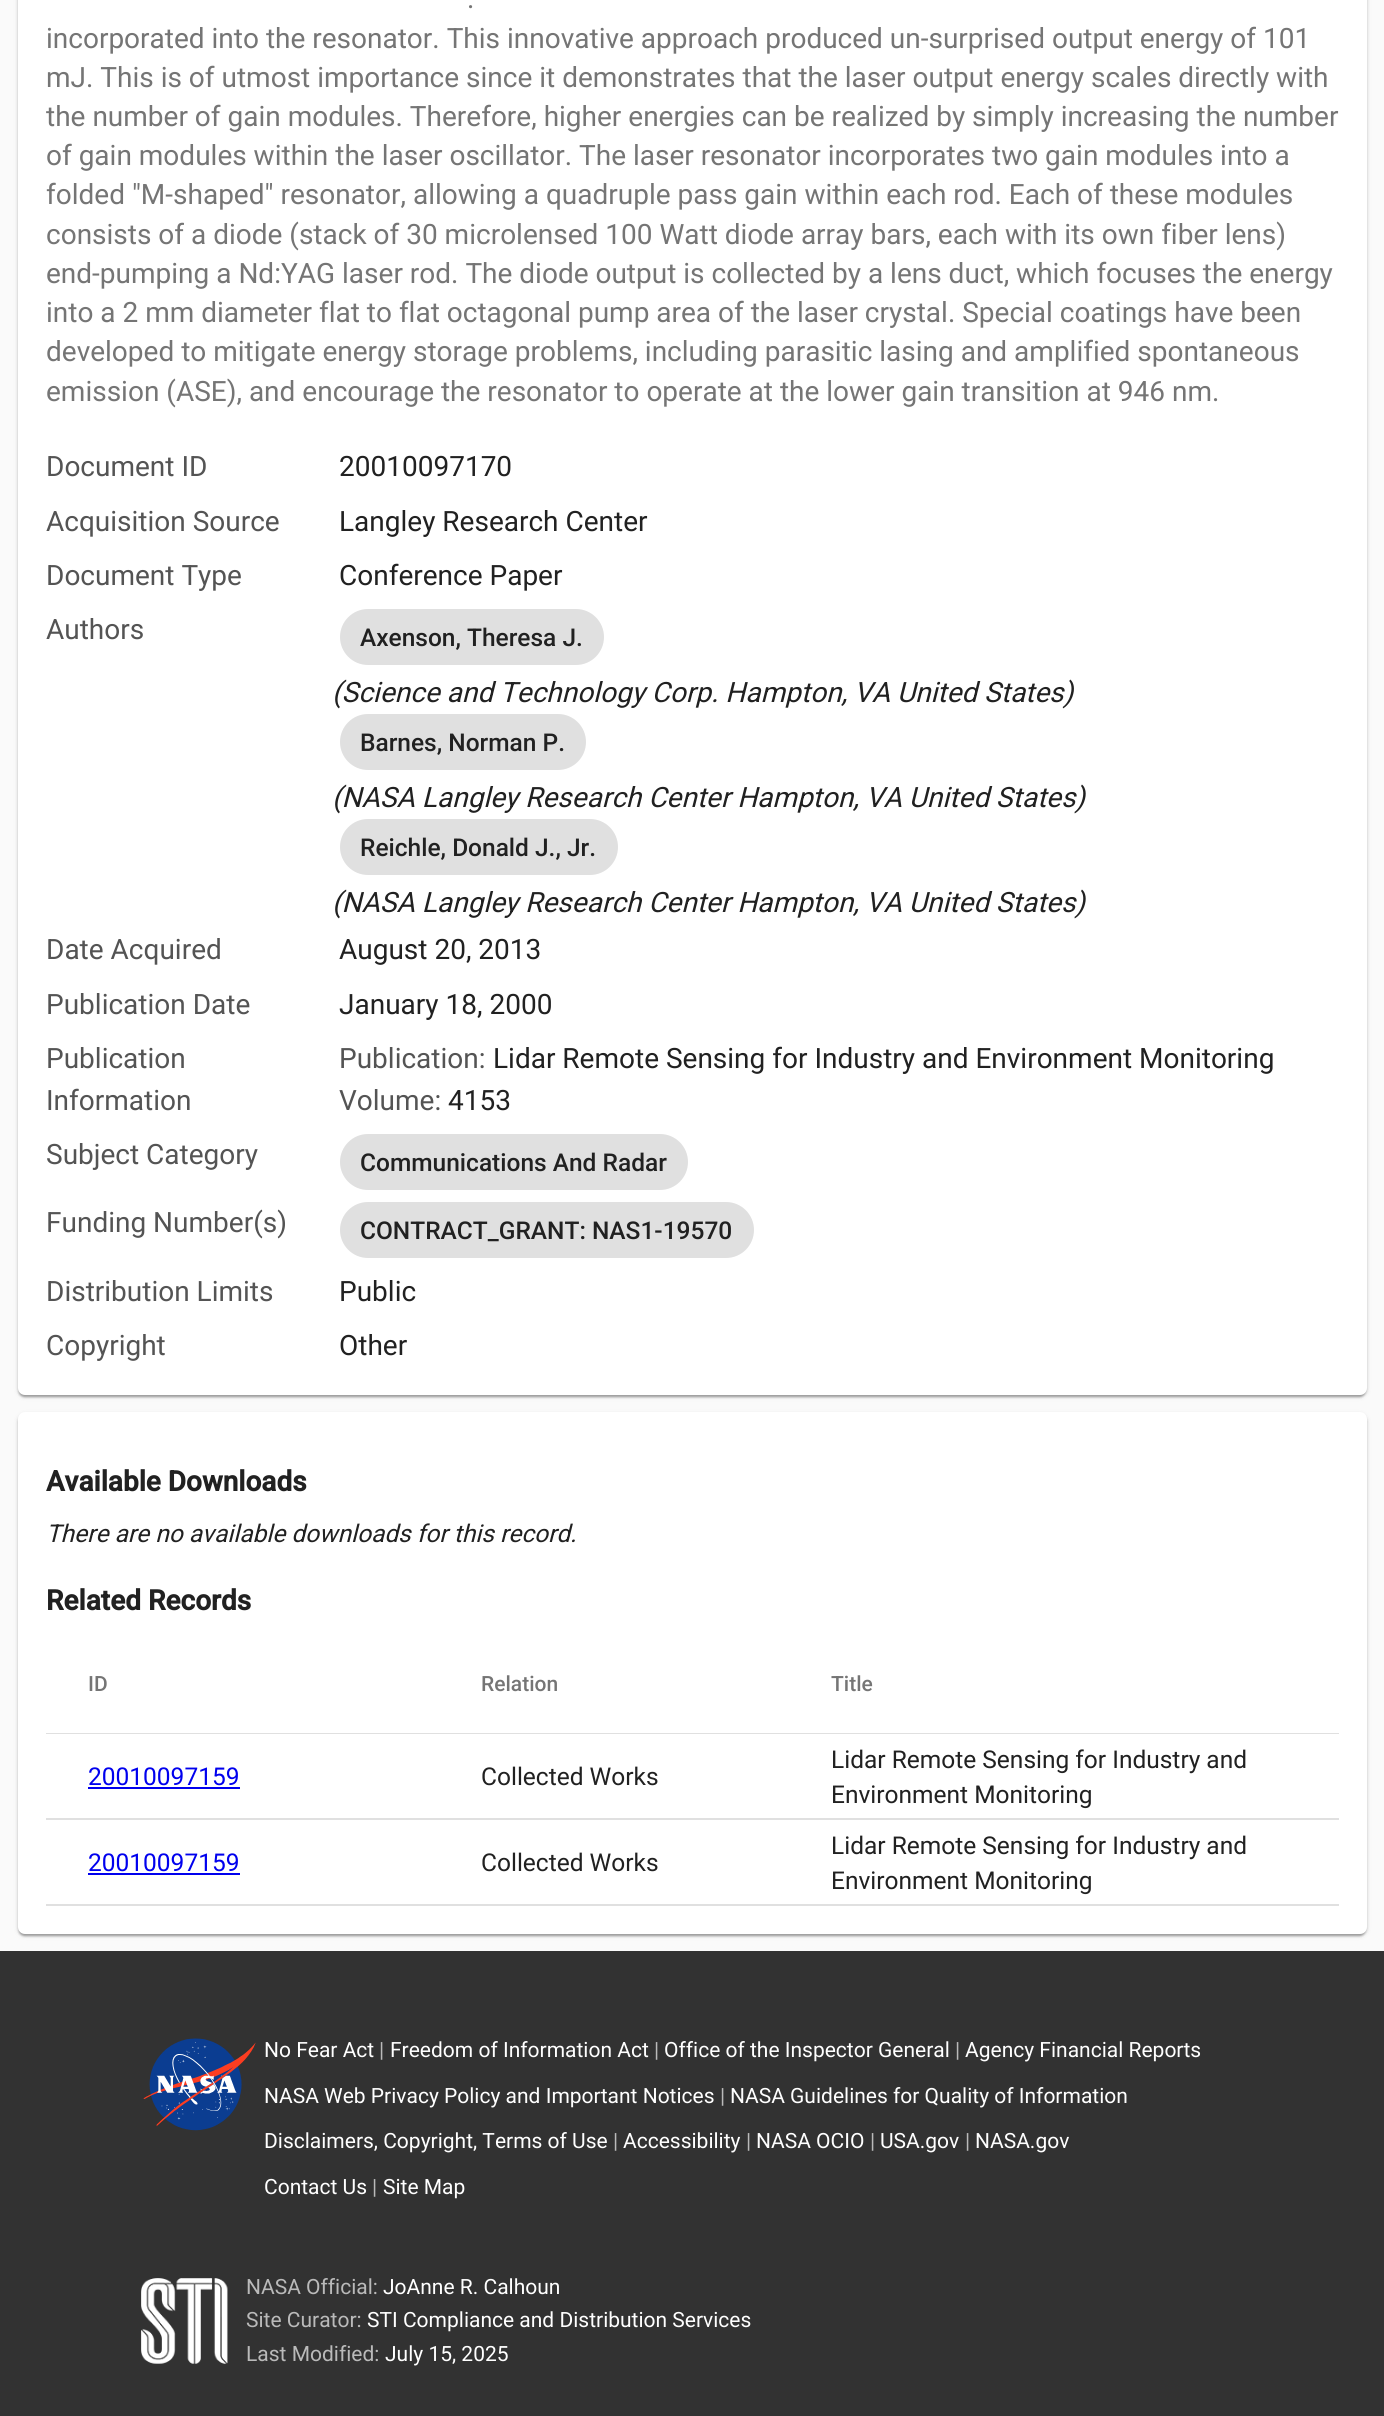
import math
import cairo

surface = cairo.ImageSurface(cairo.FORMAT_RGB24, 1384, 2416)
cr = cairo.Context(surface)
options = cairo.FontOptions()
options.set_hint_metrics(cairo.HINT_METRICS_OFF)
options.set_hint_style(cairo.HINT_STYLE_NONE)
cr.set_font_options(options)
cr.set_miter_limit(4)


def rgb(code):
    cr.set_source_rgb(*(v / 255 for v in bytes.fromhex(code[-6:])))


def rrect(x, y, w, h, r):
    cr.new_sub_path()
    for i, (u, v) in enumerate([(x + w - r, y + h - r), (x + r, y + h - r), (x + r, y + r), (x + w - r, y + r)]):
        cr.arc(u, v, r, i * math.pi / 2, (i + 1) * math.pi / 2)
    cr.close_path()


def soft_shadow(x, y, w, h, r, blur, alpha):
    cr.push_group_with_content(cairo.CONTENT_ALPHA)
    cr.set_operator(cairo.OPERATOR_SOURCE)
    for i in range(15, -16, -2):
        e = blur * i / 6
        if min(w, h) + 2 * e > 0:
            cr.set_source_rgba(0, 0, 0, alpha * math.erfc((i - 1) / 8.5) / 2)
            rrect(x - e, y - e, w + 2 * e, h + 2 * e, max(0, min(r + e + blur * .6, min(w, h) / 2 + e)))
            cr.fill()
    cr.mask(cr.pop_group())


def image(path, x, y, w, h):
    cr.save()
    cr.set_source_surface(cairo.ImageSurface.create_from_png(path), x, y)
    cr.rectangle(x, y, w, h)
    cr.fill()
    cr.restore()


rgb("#fafafa")
cr.paint()
rgb("#000000")
soft_shadow(18, -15, 1349, 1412, 7, 2.5, 0.12)
soft_shadow(18, -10, 1349, 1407, 7, 1, 0.14)
soft_shadow(19, -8, 1346, 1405, 5, 1, 0.2)
rgb("#ffffff")
rrect(18, -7, 1349, 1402, 7)
cr.fill()
rgb("#e0e0e0")
rrect(340, 609, 264, 56, 28)
cr.fill()
rrect(340, 714, 246, 56, 28)
cr.fill()
rrect(340, 819, 278, 56, 28)
cr.fill()
rrect(340, 1134, 348, 56, 28)
cr.fill()
rrect(340, 1202, 414, 56, 28)
cr.fill()
rgb("#000000")
soft_shadow(18, 1414, 1349, 522, 7, 2.5, 0.12)
soft_shadow(18, 1414, 1349, 522, 7, 1, 0.14)
soft_shadow(19, 1418, 1346, 518, 5, 1, 0.2)
rgb("#ffffff")
rrect(18, 1412, 1349, 522, 7)
cr.fill()
for x, y, w, h, color in [
    (46, 1733, 1293, 1, "#e0e0e0"),
    (46, 1818, 1293, 2, "#e0e0e0"),
    (88, 1787, 152, 2, "#0000ee"),
    (88, 1873, 152, 2, "#0000ee"),
    (46, 1904, 1293, 2, "#e0e0e0"),
    (0, 1951, 1384, 465, "#323232"),
]:
    rgb(color)
    cr.rectangle(x, y, w, h)
    cr.fill()
image("img/1.png", 143, 2038, 113, 93)
image("img/2.png", 141, 2278, 87, 86)
cr.select_font_face("Roboto")
cr.set_font_size(28)
rgb("#757575")
for x, y, s in [
    (467, 8, "."),
    (46, 48, "incorporated into the resonator. This innovative approach produced un-surprised output energy of 101"),
    (46, 87, "mJ. This is of utmost importance since it demonstrates that the laser output energy scales directly with"),
    (46, 126, "the number of gain modules. Therefore, higher energies can be realized by simply increasing the number"),
    (46, 165, "of gain modules within the laser oscillator. The laser resonator incorporates two gain modules into a"),
    (46, 204, "folded \"M-shaped\" resonator, allowing a quadruple pass gain within each rod. Each of these modules"),
    (46, 244, "consists of a diode (stack of 30 microlensed 100 Watt diode array bars, each with its own fiber lens)"),
    (46, 283, "end-pumping a Nd:YAG laser rod. The diode output is collected by a lens duct, which focuses the energy"),
    (46, 322, "into a 2 mm diameter flat to flat octagonal pump area of the laser crystal. Special coatings have been"),
    (46, 361, "developed to mitigate energy storage problems, including parasitic lasing and amplified spontaneous"),
    (46, 401, "emission (ASE), and encourage the resonator to operate at the lower gain transition at 946 nm."),
]:
    cr.move_to(x, y)
    cr.show_text(s)
rgb("#545454")
cr.move_to(46, 476)
cr.show_text("Document ID")
rgb("#212121")
cr.move_to(339, 476)
cr.show_text("20010097170")
rgb("#545454")
cr.move_to(46, 531)
cr.show_text("Acquisition Source")
rgb("#212121")
cr.move_to(339, 531)
cr.show_text("Langley Research Center")
rgb("#545454")
cr.move_to(46, 585)
cr.show_text("Document Type")
rgb("#212121")
cr.move_to(339, 585)
cr.show_text("Conference Paper")
rgb("#545454")
cr.move_to(46, 639)
cr.show_text("Authors")
cr.select_font_face("Roboto Medium")
cr.set_font_size(24.5)
rgb("#212121")
cr.move_to(360, 646)
cr.show_text("Axenson, Theresa J.")
cr.select_font_face("Roboto", cairo.FONT_SLANT_ITALIC)
cr.set_font_size(28)
cr.move_to(332, 702)
cr.show_text("(Science and Technology Corp. Hampton, VA United States)")
cr.select_font_face("Roboto Medium")
cr.set_font_size(24.5)
cr.move_to(360, 751)
cr.show_text("Barnes, Norman P.")
cr.select_font_face("Roboto", cairo.FONT_SLANT_ITALIC)
cr.set_font_size(28)
cr.move_to(332, 807)
cr.show_text("(NASA Langley Research Center Hampton, VA United States)")
cr.select_font_face("Roboto Medium")
cr.set_font_size(24.5)
cr.move_to(360, 856)
cr.show_text("Reichle, Donald J., Jr.")
cr.select_font_face("Roboto", cairo.FONT_SLANT_ITALIC)
cr.set_font_size(28)
cr.move_to(332, 912)
cr.show_text("(NASA Langley Research Center Hampton, VA United States)")
cr.select_font_face("Roboto")
rgb("#545454")
cr.move_to(46, 959)
cr.show_text("Date Acquired")
rgb("#212121")
cr.move_to(339, 959)
cr.show_text("August 20, 2013")
rgb("#545454")
cr.move_to(46, 1014)
cr.show_text("Publication Date")
rgb("#212121")
cr.move_to(339, 1014)
cr.show_text("January 18, 2000")
rgb("#545454")
for x, y, s in [
    (46, 1068, "Publication"),
    (46, 1110, "Information"),
    (339, 1068, "Publication:"),
]:
    cr.move_to(x, y)
    cr.show_text(s)
rgb("#212121")
cr.move_to(493, 1068)
cr.show_text("Lidar Remote Sensing for Industry and Environment Monitoring")
rgb("#545454")
cr.move_to(339, 1110)
cr.show_text("Volume:")
rgb("#212121")
cr.move_to(448, 1110)
cr.show_text("4153")
rgb("#545454")
cr.move_to(46, 1164)
cr.show_text("Subject Category")
cr.select_font_face("Roboto Medium")
cr.set_font_size(24.5)
rgb("#212121")
cr.move_to(360, 1171)
cr.show_text("Communications And Radar")
cr.select_font_face("Roboto")
cr.set_font_size(28)
rgb("#545454")
cr.move_to(46, 1232)
cr.show_text("Funding Number(s)")
cr.select_font_face("Roboto Medium")
cr.set_font_size(24.5)
rgb("#212121")
cr.move_to(360, 1239)
cr.show_text("CONTRACT_GRANT: NAS1-19570")
cr.select_font_face("Roboto")
cr.set_font_size(28)
rgb("#545454")
cr.move_to(46, 1301)
cr.show_text("Distribution Limits")
rgb("#212121")
cr.move_to(339, 1301)
cr.show_text("Public")
rgb("#545454")
cr.move_to(46, 1355)
cr.show_text("Copyright")
rgb("#212121")
cr.move_to(339, 1355)
cr.show_text("Other")
cr.select_font_face("Roboto", cairo.FONT_SLANT_NORMAL, cairo.FONT_WEIGHT_BOLD)
cr.move_to(46, 1491)
cr.show_text("Available Downloads")
cr.select_font_face("Roboto", cairo.FONT_SLANT_ITALIC)
cr.set_font_size(24.5)
cr.move_to(46, 1542)
cr.show_text("There are no available downloads for this record.")
cr.select_font_face("Roboto", cairo.FONT_SLANT_NORMAL, cairo.FONT_WEIGHT_BOLD)
cr.set_font_size(28)
cr.move_to(46, 1610)
cr.show_text("Related Records")
cr.select_font_face("Roboto Medium")
cr.set_font_size(21)
rgb("#757575")
for x, y, s in [
    (88, 1691, "ID"),
    (481, 1691, "Relation"),
    (831, 1691, "Title"),
]:
    cr.move_to(x, y)
    cr.show_text(s)
cr.select_font_face("Roboto")
cr.set_font_size(24.5)
rgb("#0000ee")
cr.move_to(88, 1785)
cr.show_text("20010097159")
rgb("#212121")
for x, y, s in [
    (481, 1785, "Collected Works"),
    (831, 1768, "Lidar Remote Sensing for Industry and"),
    (831, 1803, "Environment Monitoring"),
]:
    cr.move_to(x, y)
    cr.show_text(s)
rgb("#0000ee")
cr.move_to(88, 1871)
cr.show_text("20010097159")
rgb("#212121")
for x, y, s in [
    (481, 1871, "Collected Works"),
    (831, 1854, "Lidar Remote Sensing for Industry and"),
    (831, 1889, "Environment Monitoring"),
]:
    cr.move_to(x, y)
    cr.show_text(s)
cr.set_font_size(21)
rgb("#ffffff")
cr.move_to(264, 2057)
cr.show_text("No Fear Act")
rgb("#bababa")
cr.move_to(379, 2057)
cr.show_text("|")
rgb("#ffffff")
cr.move_to(390, 2057)
cr.show_text("Freedom of Information Act")
rgb("#bababa")
cr.move_to(654, 2057)
cr.show_text("|")
rgb("#ffffff")
cr.move_to(664, 2057)
cr.show_text("Office of the Inspector General")
rgb("#bababa")
cr.move_to(955, 2057)
cr.show_text("|")
rgb("#ffffff")
cr.move_to(965, 2057)
cr.show_text("Agency Financial Reports")
cr.move_to(264, 2103)
cr.show_text("NASA Web Privacy Policy and Important Notices")
rgb("#bababa")
cr.move_to(720, 2103)
cr.show_text("|")
rgb("#ffffff")
cr.move_to(730, 2103)
cr.show_text("NASA Guidelines for Quality of Information")
cr.move_to(264, 2148)
cr.show_text("Disclaimers, Copyright, Terms of Use")
rgb("#bababa")
cr.move_to(613, 2148)
cr.show_text("|")
rgb("#ffffff")
cr.move_to(623, 2148)
cr.show_text("Accessibility")
rgb("#bababa")
cr.move_to(746, 2148)
cr.show_text("|")
rgb("#ffffff")
cr.move_to(756, 2148)
cr.show_text("NASA OCIO")
rgb("#bababa")
cr.move_to(870, 2148)
cr.show_text("|")
rgb("#ffffff")
cr.move_to(880, 2148)
cr.show_text("USA.gov")
rgb("#bababa")
cr.move_to(965, 2148)
cr.show_text("|")
rgb("#ffffff")
cr.move_to(975, 2148)
cr.show_text("NASA.gov")
cr.move_to(264, 2194)
cr.show_text("Contact Us")
rgb("#bababa")
cr.move_to(372, 2194)
cr.show_text("|")
rgb("#ffffff")
cr.move_to(383, 2194)
cr.show_text("Site Map")
rgb("#bababa")
cr.move_to(246, 2294)
cr.show_text("NASA Official:")
rgb("#ffffff")
cr.move_to(383, 2294)
cr.show_text("JoAnne R. Calhoun")
rgb("#bababa")
cr.move_to(246, 2327)
cr.show_text("Site Curator:")
rgb("#ffffff")
cr.move_to(367, 2327)
cr.show_text("STI Compliance and Distribution Services")
rgb("#bababa")
cr.move_to(246, 2361)
cr.show_text("Last Modified:")
rgb("#ffffff")
cr.move_to(385, 2361)
cr.show_text("July 15, 2025")
surface.write_to_png("page.png")
